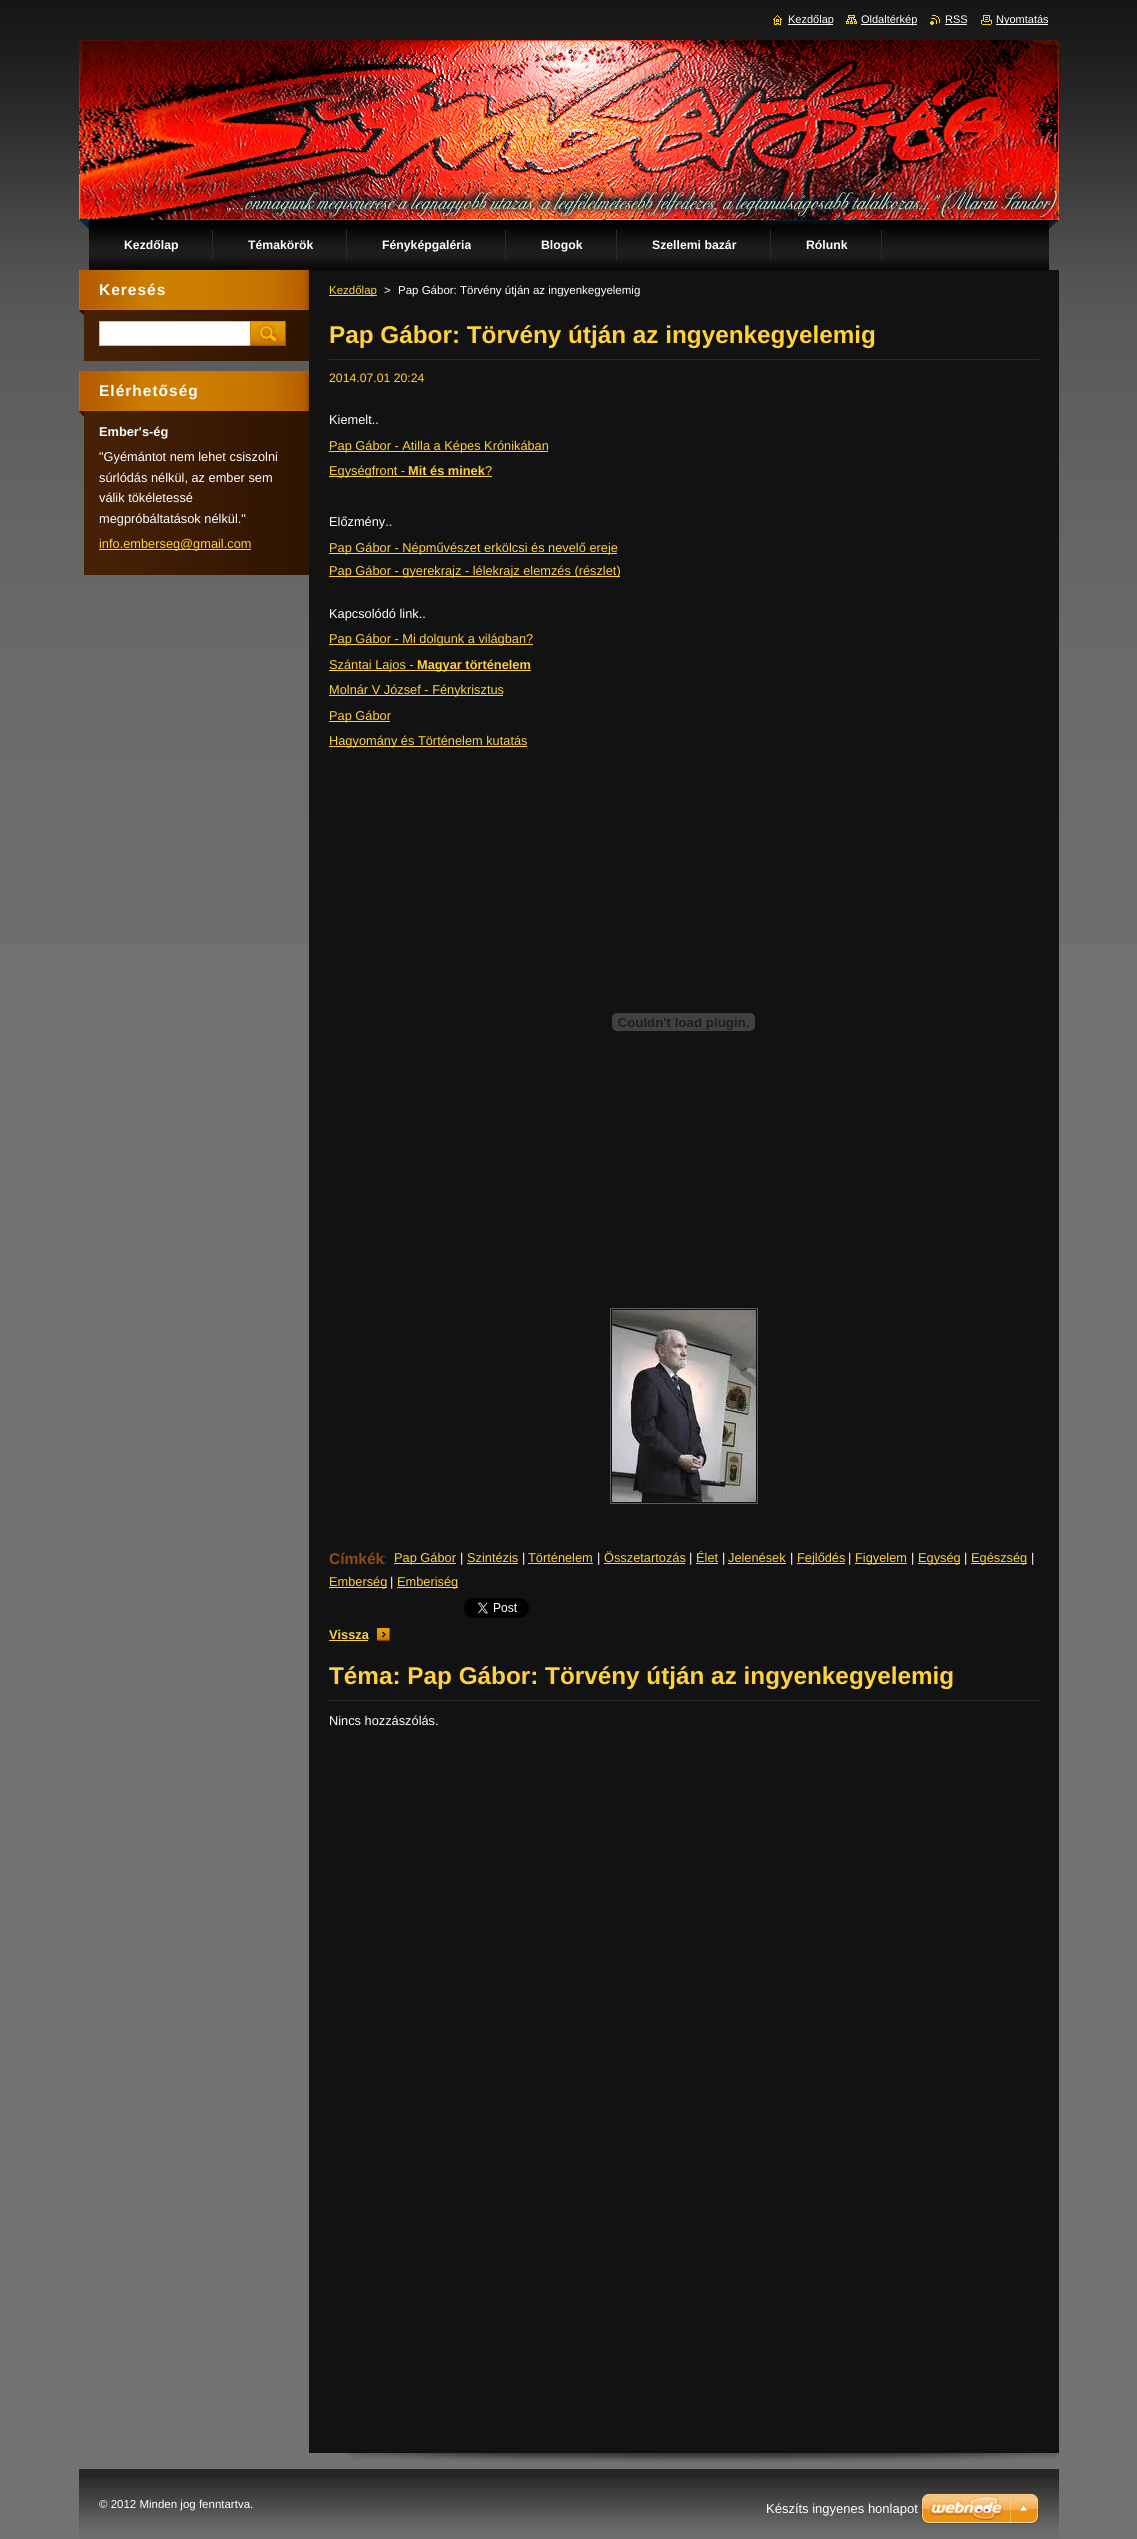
import math
import cairo

surface = cairo.ImageSurface(cairo.FORMAT_RGB24, 1137, 2539)
cr = cairo.Context(surface)
options = cairo.FontOptions()
options.set_hint_metrics(cairo.HINT_METRICS_OFF)
options.set_hint_style(cairo.HINT_STYLE_NONE)
cr.set_font_options(options)
cr.set_miter_limit(4)


def rgb(code):
    cr.set_source_rgb(*(v / 255 for v in bytes.fromhex(code[-6:])))


def tracked(x, y, s, letter, word):
    cr.move_to(x, y)
    for ch in s:
        cr.show_text(ch)
        cr.rel_move_to(letter + word * (ch == ' '), 0)


def image(path, x, y, w, h):
    cr.save()
    cr.set_source_surface(cairo.ImageSurface.create_from_png(path), x, y)
    cr.rectangle(x, y, w, h)
    cr.fill()
    cr.restore()


rgb("#727272")
cr.paint()
image("img/1.png", 0, 0, 1137, 945)
image("img/2.png", 773, 15, 9, 10)
rgb("#ffffff")
cr.rectangle(788, 24, 45, 1)
cr.fill()
image("img/3.png", 846, 15, 11, 9)
cr.rectangle(861, 24, 56, 1)
cr.fill()
image("img/4.png", 930, 15, 10, 10)
cr.rectangle(945, 24, 22, 1)
cr.fill()
image("img/5.png", 981, 15, 11, 10)
cr.rectangle(996, 24, 52, 1)
cr.fill()
image("img/6.png", 79, 40, 980, 180)
image("img/7.png", 79, 220, 980, 50)
for x, y, w, h, color in [
    (212, 230, 1, 30, "#2a2a2a"),
    (346, 230, 1, 30, "#2a2a2a"),
    (505, 230, 1, 30, "#2a2a2a"),
    (616, 230, 1, 30, "#2a2a2a"),
    (770, 230, 1, 30, "#2a2a2a"),
    (881, 230, 1, 30, "#2a2a2a"),
]:
    rgb(color)
    cr.rectangle(x, y, w, h)
    cr.fill()
image("img/8.png", 84, 316, 225, 45)
image("img/9.png", 79, 270, 230, 46)
rgb("#ffffff")
cr.rectangle(99.5, 321.5, 151, 24)
cr.fill_preserve()
rgb("#c1c1c1")
cr.set_line_width(1)
cr.stroke()
image("img/10.png", 250, 321, 36, 25)
image("img/11.png", 84, 417, 225, 158)
image("img/12.png", 79, 371, 230, 46)
rgb("#ffd23a")
cr.rectangle(99, 549, 152, 1)
cr.fill()
image("img/13.png", 349, 2453, 710, 10)
for x, y, w, h, color in [
    (309, 270, 750, 2183, "#121212"),
    (329, 295, 48, 1, "#ffd23a"),
    (329, 359, 710, 1, "#2a2a2a"),
    (329, 451, 219, 1, "#ffd23a"),
    (329, 476, 163, 1, "#ffd23a"),
    (329, 553, 288, 1, "#ffd23a"),
    (329, 576, 291, 1, "#ffd23a"),
    (329, 644, 204, 1, "#ffd23a"),
    (329, 670, 202, 1, "#ffd23a"),
    (329, 695, 174, 1, "#ffd23a"),
    (329, 721, 61, 1, "#ffd23a"),
    (329, 746, 198, 1, "#ffd23a"),
]:
    rgb(color)
    cr.rectangle(x, y, w, h)
    cr.fill()
image("img/14.png", 612, 1013, 143, 18)
cr.rectangle(610.5, 1308.5, 147, 195)
rgb("#5c5c5c")
cr.stroke()
image("img/15.png", 612, 1310, 144, 192)
for x, y, w, h, color in [
    (394, 1563, 62, 1, "#ffd23a"),
    (467, 1563, 51, 1, "#ffd23a"),
    (528, 1563, 65, 1, "#ffd23a"),
    (604, 1563, 81, 1, "#ffd23a"),
    (696, 1563, 22, 1, "#ffd23a"),
    (728, 1563, 58, 1, "#ffd23a"),
    (797, 1563, 48, 1, "#ffd23a"),
    (855, 1563, 52, 1, "#ffd23a"),
    (918, 1563, 42, 1, "#ffd23a"),
    (971, 1563, 56, 1, "#ffd23a"),
    (329, 1587, 58, 1, "#ffd23a"),
    (397, 1587, 61, 1, "#ffd23a"),
]:
    rgb(color)
    cr.rectangle(x, y, w, h)
    cr.fill()
image("img/16.png", 464, 1598, 65, 20)
image("img/17.png", 377, 1628, 13, 13)
for x, y, w, h, color in [
    (329, 1640, 39, 1, "#ffd23a"),
    (329, 1700, 710, 1, "#2a2a2a"),
    (79, 2469, 980, 9, "#272727"),
]:
    rgb(color)
    cr.rectangle(x, y, w, h)
    cr.fill()
image("img/18.png", 79, 2478, 980, 61)
image("img/19.png", 921, 2493, 118, 31)
cr.select_font_face("Liberation Sans")
cr.set_font_size(11)
rgb("#ffffff")
for x, y, s in [
    (788, 23, "Kezdőlap"),
    (861, 23, "Oldaltérkép"),
    (945, 23, "RSS"),
    (996, 23, "Nyomtatás"),
]:
    cr.move_to(x, y)
    cr.show_text(s)
cr.select_font_face("Liberation Sans", cairo.FONT_SLANT_NORMAL, cairo.FONT_WEIGHT_BOLD)
cr.set_font_size(12.25)
for x, y, s in [
    (124, 249, "Kezdőlap"),
    (248, 249, "Témakörök"),
    (382, 249, "Fényképgaléria"),
    (541, 249, "Blogok"),
    (652, 249, "Szellemi bazár"),
    (806, 249, "Rólunk"),
]:
    cr.move_to(x, y)
    cr.show_text(s)
cr.set_font_size(15.5)
tracked(99, 295, "Keresés", 1, 0)
tracked(99, 396, "Elérhetőség", 1, 0)
cr.set_font_size(12.8)
cr.move_to(99, 436)
cr.show_text("Ember's-ég")
cr.select_font_face("Liberation Sans")
for x, y, s in [
    (99, 461, "\"Gyémántot nem lehet csiszolni"),
    (99, 482, "súrlódás nélkül, az ember sem"),
    (99, 502, "válik tökéletessé"),
    (99, 523, "megpróbáltatások nélkül.\""),
]:
    cr.move_to(x, y)
    cr.show_text(s)
rgb("#ffd23a")
cr.move_to(99, 548)
cr.show_text("info.emberseg@gmail.com")
cr.set_font_size(11.5)
cr.move_to(329, 294)
cr.show_text("Kezdőlap")
rgb("#ffffff")
cr.move_to(384, 294)
cr.show_text(">")
cr.move_to(398, 294)
cr.show_text("Pap Gábor: Törvény útján az ingyenkegyelemig")
cr.select_font_face("Liberation Sans", cairo.FONT_SLANT_NORMAL, cairo.FONT_WEIGHT_BOLD)
cr.set_font_size(24.3)
rgb("#ffd23a")
cr.move_to(329, 343)
cr.show_text("Pap Gábor: Törvény útján az ingyenkegyelemig")
cr.select_font_face("Liberation Sans")
cr.set_font_size(12.25)
cr.move_to(329, 382)
cr.show_text("2014.07.01 20:24")
cr.set_font_size(12.8)
rgb("#ffffff")
cr.move_to(329, 424)
cr.show_text("Kiemelt..")
rgb("#ffd23a")
cr.move_to(329, 450)
cr.show_text("Pap Gábor - Atilla a Képes Krónikában")
cr.move_to(329, 475)
cr.show_text("Egységfront -")
cr.select_font_face("Liberation Sans", cairo.FONT_SLANT_NORMAL, cairo.FONT_WEIGHT_BOLD)
cr.move_to(408, 475)
cr.show_text("Mit és minek")
cr.select_font_face("Liberation Sans")
cr.move_to(485, 475)
cr.show_text("?")
rgb("#ffffff")
cr.move_to(329, 526)
cr.show_text("Előzmény..")
rgb("#ffd23a")
cr.move_to(329, 552)
cr.show_text("Pap Gábor - Népművészet erkölcsi és nevelő ereje")
cr.move_to(329, 575)
cr.show_text("Pap Gábor - gyerekrajz - lélekrajz elemzés (részlet)")
rgb("#ffffff")
cr.move_to(329, 618)
cr.show_text("Kapcsolódó link..")
rgb("#ffd23a")
cr.move_to(329, 643)
cr.show_text("Pap Gábor - Mi dolgunk a világban?")
cr.move_to(329, 669)
cr.show_text("Szántai Lajos -")
cr.select_font_face("Liberation Sans", cairo.FONT_SLANT_NORMAL, cairo.FONT_WEIGHT_BOLD)
cr.move_to(417, 669)
cr.show_text("Magyar történelem")
cr.select_font_face("Liberation Sans")
for x, y, s in [
    (329, 694, "Molnár V József - Fénykrisztus"),
    (329, 720, "Pap Gábor"),
    (329, 745, "Hagyomány és Történelem kutatás"),
    (394, 1562, "Pap Gábor"),
]:
    cr.move_to(x, y)
    cr.show_text(s)
rgb("#ffffff")
cr.move_to(460, 1562)
cr.show_text("|")
rgb("#ffd23a")
cr.move_to(467, 1562)
cr.show_text("Szintézis")
rgb("#ffffff")
cr.move_to(522, 1562)
cr.show_text("|")
rgb("#ffd23a")
cr.move_to(528, 1562)
cr.show_text("Történelem")
rgb("#ffffff")
cr.move_to(597, 1562)
cr.show_text("|")
rgb("#ffd23a")
cr.move_to(604, 1562)
cr.show_text("Összetartozás")
rgb("#ffffff")
cr.move_to(689, 1562)
cr.show_text("|")
rgb("#ffd23a")
cr.move_to(696, 1562)
cr.show_text("Élet")
rgb("#ffffff")
cr.move_to(722, 1562)
cr.show_text("|")
rgb("#ffd23a")
cr.move_to(728, 1562)
cr.show_text("Jelenések")
rgb("#ffffff")
cr.move_to(790, 1562)
cr.show_text("|")
rgb("#ffd23a")
cr.move_to(797, 1562)
cr.show_text("Fejlődés")
rgb("#ffffff")
cr.move_to(848, 1562)
cr.show_text("|")
rgb("#ffd23a")
cr.move_to(855, 1562)
cr.show_text("Figyelem")
rgb("#ffffff")
cr.move_to(911, 1562)
cr.show_text("|")
rgb("#ffd23a")
cr.move_to(918, 1562)
cr.show_text("Egység")
rgb("#ffffff")
cr.move_to(964, 1562)
cr.show_text("|")
rgb("#ffd23a")
cr.move_to(971, 1562)
cr.show_text("Egészség")
rgb("#ffffff")
cr.move_to(1031, 1562)
cr.show_text("|")
rgb("#ffd23a")
cr.move_to(329, 1586)
cr.show_text("Emberség")
rgb("#ffffff")
cr.move_to(390, 1586)
cr.show_text("|")
rgb("#ffd23a")
cr.move_to(397, 1586)
cr.show_text("Emberiség")
cr.select_font_face("Liberation Sans", cairo.FONT_SLANT_NORMAL, cairo.FONT_WEIGHT_BOLD)
cr.set_font_size(15.5)
rgb("#914a14")
cr.move_to(329, 1564)
cr.show_text("Címkék")
cr.select_font_face("Liberation Sans")
rgb("#0b588a")
cr.move_to(383, 1564)
cr.show_text(":")
cr.select_font_face("Liberation Sans", cairo.FONT_SLANT_NORMAL, cairo.FONT_WEIGHT_BOLD)
cr.set_font_size(12.8)
rgb("#ffd23a")
cr.move_to(329, 1639)
cr.show_text("Vissza")
cr.save()
cr.rectangle(329, 1662, 710, 74)
cr.clip()
cr.set_font_size(24.3)
cr.move_to(329, 1684)
cr.show_text("Téma: Pap Gábor: Törvény útján az ingyenkegyelemig")
cr.restore()
cr.select_font_face("Liberation Sans")
rgb("#ffffff")
cr.move_to(329, 1725)
cr.show_text("Nincs hozzászólás.")
cr.set_font_size(11.5)
cr.move_to(99, 2508)
cr.show_text("© 2012 Minden jog fenntartva.")
cr.set_font_size(13)
cr.move_to(766, 2513)
cr.show_text("Készíts ingyenes honlapot")
surface.write_to_png("page.png")
